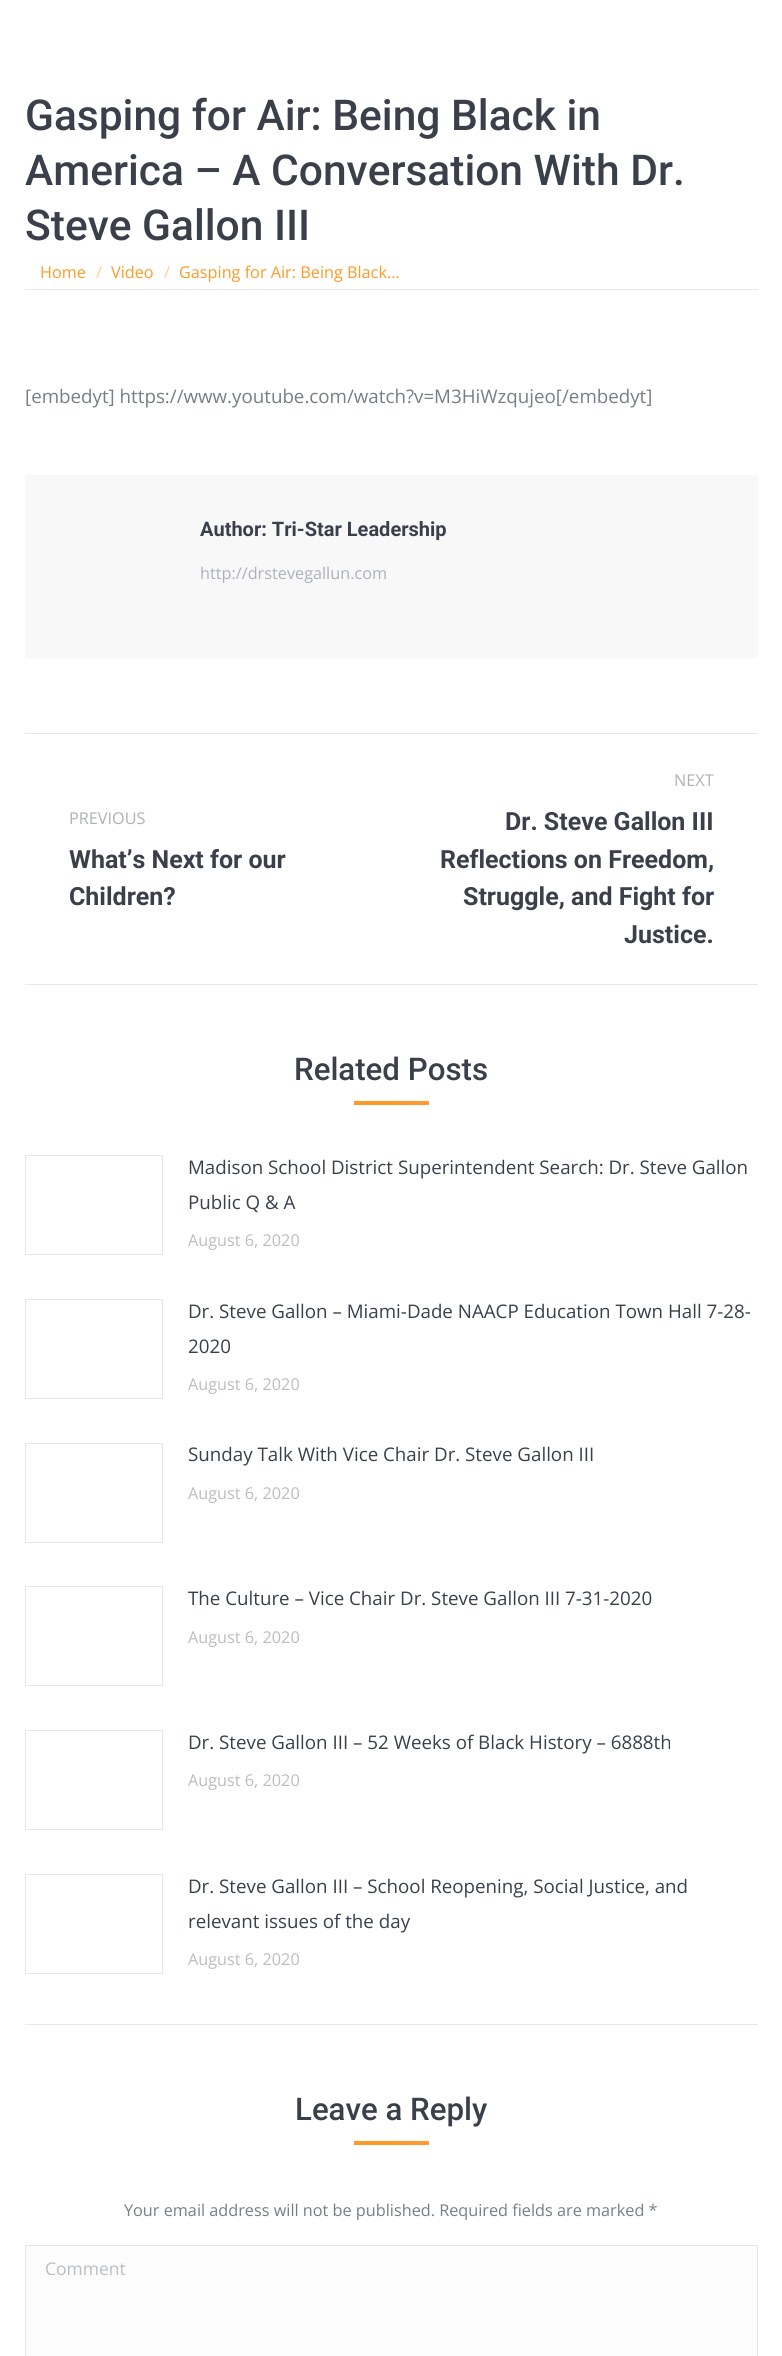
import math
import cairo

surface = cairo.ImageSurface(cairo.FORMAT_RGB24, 782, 2356)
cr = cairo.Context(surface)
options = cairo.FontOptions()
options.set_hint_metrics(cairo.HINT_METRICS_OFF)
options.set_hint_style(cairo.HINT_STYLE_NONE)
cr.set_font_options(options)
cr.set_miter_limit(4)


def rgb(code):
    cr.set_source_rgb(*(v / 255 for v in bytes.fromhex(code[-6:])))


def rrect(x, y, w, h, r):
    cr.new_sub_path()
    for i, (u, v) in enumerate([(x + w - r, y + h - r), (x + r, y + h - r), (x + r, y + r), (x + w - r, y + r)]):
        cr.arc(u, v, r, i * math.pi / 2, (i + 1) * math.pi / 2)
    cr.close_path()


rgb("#ffffff")
cr.paint()
rgb("#e6e7e9")
cr.rectangle(25, 289, 733, 1)
cr.fill()
rgb("#f8f8f9")
rrect(25, 475, 733, 183, 2.5)
cr.fill()
for x, y, w, h, color in [
    (25, 733, 733, 1, "#e6e7e9"),
    (25, 984, 733, 1, "#e6e7e9"),
    (25, 2024, 733, 1, "#e6e7e9"),
]:
    rgb(color)
    cr.rectangle(x, y, w, h)
    cr.fill()
gradient = cairo.LinearGradient(354, 1103, 429, 1103)
gradient.add_color_stop_rgba(0.3, 1, 0.604, 0.141, 1)
gradient.add_color_stop_rgba(1, 1, 0.6, 0.204, 1)
cr.set_source(gradient)
cr.rectangle(354, 1101, 75, 4)
cr.fill()
cr.rectangle(25.5, 1155.5, 137, 99)
rgb("#e6e7e9")
cr.set_line_width(1)
cr.stroke()
cr.rectangle(25.5, 1299.5, 137, 99)
cr.stroke()
cr.rectangle(25.5, 1443.5, 137, 99)
cr.stroke()
cr.rectangle(25.5, 1586.5, 137, 99)
cr.stroke()
cr.rectangle(25.5, 1730.5, 137, 99)
cr.stroke()
cr.rectangle(25.5, 1874.5, 137, 99)
cr.stroke()
gradient = cairo.LinearGradient(354, 2143, 429, 2143)
gradient.add_color_stop_rgba(0.3, 1, 0.604, 0.141, 1)
gradient.add_color_stop_rgba(1, 1, 0.6, 0.204, 1)
cr.set_source(gradient)
cr.rectangle(354, 2141, 75, 4)
cr.fill()
rgb("#fcfcfc")
cr.rectangle(25.5, 2245.5, 732, 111)
cr.fill_preserve()
rgb("#e4e5e7")
cr.stroke()
cr.select_font_face("Roboto Medium")
cr.set_font_size(42.5)
rgb("#3b3f4a")
for x, y, s in [
    (25, 130, "Gasping for Air: Being Black in"),
    (25, 185, "America – A Conversation With Dr."),
    (25, 240, "Steve Gallon III"),
]:
    cr.move_to(x, y)
    cr.show_text(s)
cr.select_font_face("Open Sans")
cr.set_font_size(16.25)
rgb("#ff9a25")
cr.move_to(40, 278)
cr.show_text("Home")
rgb("#ffcd92")
cr.move_to(96, 278)
cr.show_text("/")
rgb("#ff9a25")
cr.move_to(111, 278)
cr.show_text("Video")
rgb("#ffcd92")
cr.move_to(164, 278)
cr.show_text("/")
rgb("#ff9a25")
cr.move_to(179, 278)
cr.show_text("Gasping for Air: Being Black…")
cr.set_font_size(18.75)
rgb("#787d85")
cr.move_to(25, 403)
cr.show_text("[embedyt] https://www.youtube.com/watch?v=M3HiWzqujeo[/embedyt]")
cr.select_font_face("Roboto", cairo.FONT_SLANT_NORMAL, cairo.FONT_WEIGHT_BOLD)
cr.set_font_size(20)
rgb("#3b3f4a")
cr.move_to(200, 536)
cr.show_text("Author: Tri-Star Leadership")
cr.select_font_face("Open Sans")
cr.set_font_size(16.25)
rgb("#adb0b6")
cr.move_to(200, 579)
cr.show_text("http://drstevegallun.com")
cr.move_to(69, 824)
cr.show_text("PREVIOUS")
cr.select_font_face("Roboto", cairo.FONT_SLANT_NORMAL, cairo.FONT_WEIGHT_BOLD)
cr.set_font_size(25)
rgb("#3b3f4a")
cr.move_to(69, 868)
cr.show_text("What’s Next for our")
cr.move_to(69, 905)
cr.show_text("Children?")
cr.select_font_face("Open Sans")
cr.set_font_size(16.25)
rgb("#adb0b6")
cr.move_to(674, 786)
cr.show_text("NEXT")
cr.select_font_face("Roboto", cairo.FONT_SLANT_NORMAL, cairo.FONT_WEIGHT_BOLD)
cr.set_font_size(25)
rgb("#3b3f4a")
for x, y, s in [
    (505, 830, "Dr. Steve Gallon III"),
    (440, 868, "Reflections on Freedom,"),
    (463, 905, "Struggle, and Fight for"),
    (624, 943, "Justice."),
]:
    cr.move_to(x, y)
    cr.show_text(s)
cr.select_font_face("Roboto Medium")
cr.set_font_size(31.25)
cr.move_to(294, 1080)
cr.show_text("Related Posts")
cr.select_font_face("Open Sans")
cr.set_font_size(18.75)
cr.move_to(188, 1174)
cr.show_text("Madison School District Superintendent Search: Dr. Steve Gallon")
cr.move_to(188, 1209)
cr.show_text("Public Q & A")
cr.set_font_size(16.25)
rgb("#babdc1")
cr.move_to(188, 1246)
cr.show_text("August 6, 2020")
cr.set_font_size(18.75)
rgb("#3b3f4a")
cr.move_to(188, 1318)
cr.show_text("Dr. Steve Gallon – Miami-Dade NAACP Education Town Hall 7-28-")
cr.move_to(188, 1353)
cr.show_text("2020")
cr.set_font_size(16.25)
rgb("#babdc1")
cr.move_to(188, 1390)
cr.show_text("August 6, 2020")
cr.set_font_size(18.75)
rgb("#3b3f4a")
cr.move_to(188, 1461)
cr.show_text("Sunday Talk With Vice Chair Dr. Steve Gallon III")
cr.set_font_size(16.25)
rgb("#babdc1")
cr.move_to(188, 1499)
cr.show_text("August 6, 2020")
cr.set_font_size(18.75)
rgb("#3b3f4a")
cr.move_to(188, 1605)
cr.show_text("The Culture – Vice Chair Dr. Steve Gallon III 7-31-2020")
cr.set_font_size(16.25)
rgb("#babdc1")
cr.move_to(188, 1643)
cr.show_text("August 6, 2020")
cr.set_font_size(18.75)
rgb("#3b3f4a")
cr.move_to(188, 1749)
cr.show_text("Dr. Steve Gallon III – 52 Weeks of Black History – 6888th")
cr.set_font_size(16.25)
rgb("#babdc1")
cr.move_to(188, 1786)
cr.show_text("August 6, 2020")
cr.set_font_size(18.75)
rgb("#3b3f4a")
cr.move_to(188, 1893)
cr.show_text("Dr. Steve Gallon III – School Reopening, Social Justice, and")
cr.move_to(188, 1928)
cr.show_text("relevant issues of the day")
cr.set_font_size(16.25)
rgb("#babdc1")
cr.move_to(188, 1965)
cr.show_text("August 6, 2020")
cr.select_font_face("Roboto Medium")
cr.set_font_size(31.25)
rgb("#3b3f4a")
cr.move_to(295, 2120)
cr.show_text("Leave a Reply")
cr.select_font_face("Open Sans")
cr.set_font_size(16.25)
rgb("#787d85")
cr.move_to(124, 2216)
cr.show_text("Your email address will not be published. Required fields are marked *")
cr.set_font_size(17.5)
rgb("#babdc1")
cr.move_to(45, 2275)
cr.show_text("Comment")
surface.write_to_png("page.png")
